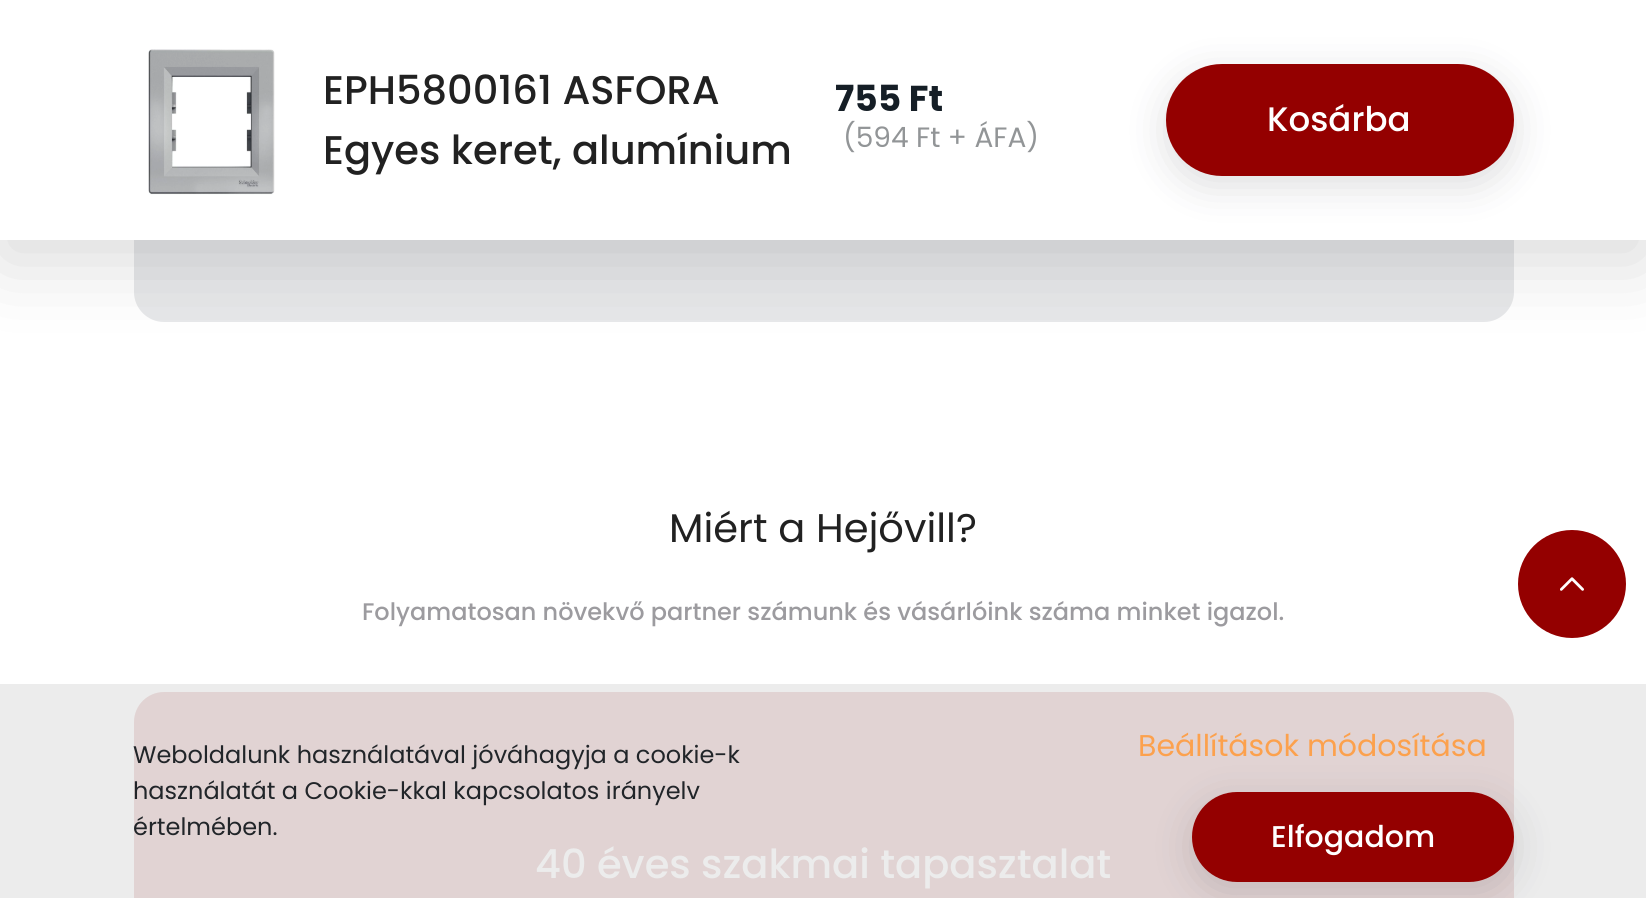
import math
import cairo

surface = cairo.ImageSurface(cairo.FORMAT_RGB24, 1646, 898)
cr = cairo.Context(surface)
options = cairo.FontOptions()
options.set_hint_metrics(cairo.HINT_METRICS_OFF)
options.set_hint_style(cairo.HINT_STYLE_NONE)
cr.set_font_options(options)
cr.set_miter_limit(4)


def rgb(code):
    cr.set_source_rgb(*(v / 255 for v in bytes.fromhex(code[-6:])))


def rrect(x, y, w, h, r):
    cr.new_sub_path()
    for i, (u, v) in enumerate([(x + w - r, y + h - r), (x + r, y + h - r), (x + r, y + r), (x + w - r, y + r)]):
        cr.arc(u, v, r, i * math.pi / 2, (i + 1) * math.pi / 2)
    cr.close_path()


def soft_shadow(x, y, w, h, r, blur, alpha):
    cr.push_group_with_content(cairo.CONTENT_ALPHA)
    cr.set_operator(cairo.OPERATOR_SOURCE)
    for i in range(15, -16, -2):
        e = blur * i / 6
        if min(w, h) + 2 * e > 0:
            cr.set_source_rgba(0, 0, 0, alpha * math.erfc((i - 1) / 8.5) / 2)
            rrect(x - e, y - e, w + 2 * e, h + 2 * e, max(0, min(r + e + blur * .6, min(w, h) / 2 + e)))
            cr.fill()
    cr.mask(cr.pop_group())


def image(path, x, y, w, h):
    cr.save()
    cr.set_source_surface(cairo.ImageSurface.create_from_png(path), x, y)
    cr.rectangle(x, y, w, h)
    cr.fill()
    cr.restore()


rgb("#ffffff")
cr.paint()
rgb("#ececec")
cr.rectangle(0, 684, 1646, 214)
cr.fill()
rgb("#e7e8ea")
cr.new_path()
cr.move_to(134, -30)
cr.line_to(1484, -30)
cr.curve_to(1500.5, -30, 1514, -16.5, 1514, 0)
cr.line_to(1514, 292)
cr.curve_to(1514, 308.5, 1500.5, 322, 1484, 322)
cr.line_to(164, 322)
cr.curve_to(147.5, 322, 134, 308.5, 134, 292)
cr.close_path()
cr.fill()
rgb("#000000")
soft_shadow(0, 20, 1646, 240, 0, 40, 0.15)
rgb("#ffffff")
cr.rectangle(0, 0, 1646, 240)
cr.fill()
image("img/1.png", 148, 49, 127, 146)
rgb("#20202c")
soft_shadow(1166, 74, 348, 112, 56, 20, 0.15)
rgb("#940000")
rrect(1167, 65, 346, 110, 55)
cr.fill_preserve()
cr.stroke()
rgb("#e1d3d3")
rrect(134, 692, 1380, 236, 30)
cr.fill()
rgb("#940000")
cr.arc(1572, 584, 53, 0, 2 * math.pi)
cr.fill_preserve()
cr.stroke()
image("img/2.png", 1560, 577, 24, 14)
rgb("#20202c")
soft_shadow(1192, 802, 322, 90, 45, 20, 0.15)
rgb("#940000")
rrect(1193, 793, 320, 88, 44)
cr.fill_preserve()
cr.stroke()
cr.select_font_face("Poppins Medium")
cr.set_font_size(40)
rgb("#212121")
cr.move_to(323, 104)
cr.show_text("EPH5800161 ASFORA")
cr.move_to(323, 164)
cr.show_text("Egyes keret, alumínium")
cr.select_font_face("Poppins", cairo.FONT_SLANT_NORMAL, cairo.FONT_WEIGHT_BOLD)
cr.set_font_size(36)
rgb("#151e26")
cr.move_to(835, 111)
cr.show_text("755 Ft")
cr.select_font_face("Poppins")
cr.set_font_size(28)
rgb("#929597")
cr.move_to(843, 147)
cr.show_text("(594 Ft + ÁFA)")
cr.select_font_face("Poppins Medium")
cr.set_font_size(34)
rgb("#ffffff")
cr.move_to(1267, 131)
cr.show_text("Kosárba")
cr.select_font_face("Poppins")
cr.set_font_size(40)
rgb("#212121")
cr.move_to(669, 542)
cr.show_text("Miért a Hejővill?")
cr.select_font_face("Poppins Medium")
cr.set_font_size(24)
rgb("#9c9b9f")
cr.move_to(362, 620)
cr.show_text("Folyamatosan növekvő partner számunk és vásárlóink száma minket igazol.")
cr.set_font_size(40)
rgb("#ececec")
cr.move_to(535, 878)
cr.show_text("40 éves szakmai tapasztalat")
cr.select_font_face("Poppins")
cr.set_font_size(24)
rgb("#212529")
for x, y, s in [
    (133, 763, "Weboldalunk használatával jóváhagyja a cookie-k"),
    (133, 799, "használatát a Cookie-kkal kapcsolatos irányelv"),
    (133, 835, "értelmében."),
]:
    cr.move_to(x, y)
    cr.show_text(s)
cr.set_font_size(30)
rgb("#fca14d")
cr.move_to(1138, 756)
cr.show_text("Beállítások módosítása")
cr.select_font_face("Poppins Medium")
rgb("#ffffff")
cr.move_to(1271, 847)
cr.show_text("Elfogadom")
surface.write_to_png("page.png")
